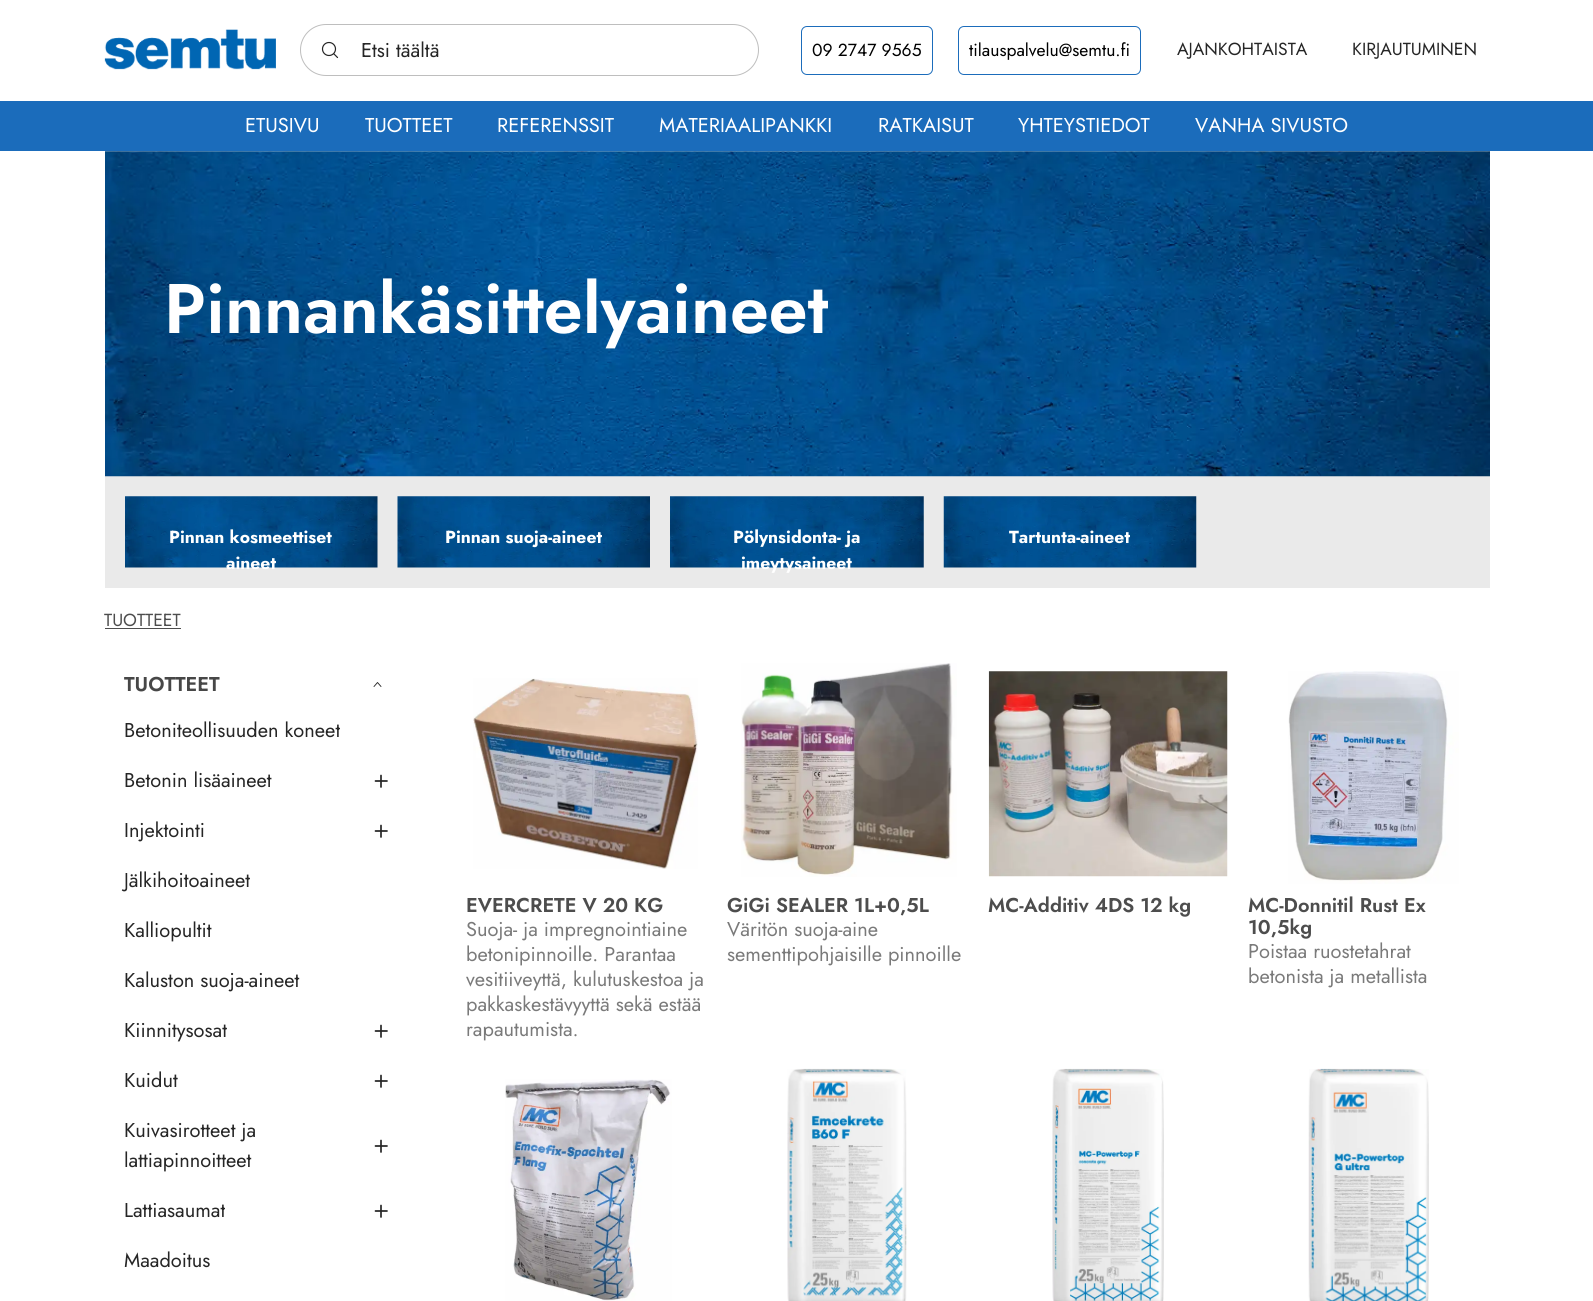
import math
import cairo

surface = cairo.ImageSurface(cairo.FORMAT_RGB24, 1593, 1301)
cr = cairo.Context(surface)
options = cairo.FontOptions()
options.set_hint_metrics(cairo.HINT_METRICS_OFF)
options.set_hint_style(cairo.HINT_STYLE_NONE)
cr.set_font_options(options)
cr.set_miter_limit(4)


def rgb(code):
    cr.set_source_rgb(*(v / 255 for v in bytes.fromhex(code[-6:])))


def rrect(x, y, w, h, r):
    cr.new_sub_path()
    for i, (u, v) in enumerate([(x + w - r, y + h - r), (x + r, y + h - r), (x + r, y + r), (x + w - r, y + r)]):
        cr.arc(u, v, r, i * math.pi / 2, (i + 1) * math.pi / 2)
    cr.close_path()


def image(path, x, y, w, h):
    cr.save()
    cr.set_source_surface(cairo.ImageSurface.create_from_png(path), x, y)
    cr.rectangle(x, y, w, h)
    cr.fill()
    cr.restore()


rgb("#ffffff")
cr.paint()
image("img/1.png", 104, 29, 172, 41)
rrect(300.5, 24.5, 458, 51, 25.5)
rgb("#bebebe")
cr.set_line_width(1)
cr.stroke()
cr.arc(329, 49, 6.5, 0, 2 * math.pi)
rgb("#262626")
cr.set_line_width(1.2)
cr.stroke()
cr.new_path()
cr.move_to(337.5, 57.5)
cr.line_to(334, 54)
cr.set_line_cap(cairo.LINE_CAP_ROUND)
cr.set_line_join(cairo.LINE_JOIN_ROUND)
cr.stroke()
rrect(801.5, 26.5, 131, 48, 5.5)
rgb("#1b6cbb")
cr.set_line_width(1)
cr.set_line_cap(cairo.LINE_CAP_BUTT)
cr.set_line_join(cairo.LINE_JOIN_MITER)
cr.stroke()
rrect(958.5, 26.5, 182, 48, 5.5)
cr.stroke()
cr.rectangle(0, 101, 1593, 50)
cr.fill()
rgb("#eaeaea")
cr.rectangle(105, 476, 1385, 112)
cr.fill()
image("img/2.png", 105, 151, 1385, 326)
image("img/3.png", 125, 496, 253, 72)
image("img/4.png", 397, 496, 253, 72)
image("img/5.png", 670, 496, 254, 72)
image("img/6.png", 943, 496, 254, 72)
rgb("#4d4d4d")
cr.rectangle(105, 628, 76, 1)
cr.fill()
cr.new_path()
cr.move_to(381, 686.5)
cr.line_to(377.5, 682.5)
cr.line_to(374, 686.5)
rgb("#262626")
cr.set_line_width(0.9)
cr.set_line_cap(cairo.LINE_CAP_ROUND)
cr.set_line_join(cairo.LINE_JOIN_ROUND)
cr.stroke()
cr.new_path()
cr.move_to(381, 775.5)
cr.line_to(381, 787)
cr.move_to(375.5, 781)
cr.line_to(387, 781)
cr.set_line_width(1.7)
cr.stroke()
cr.new_path()
cr.move_to(381, 825.5)
cr.line_to(381, 837)
cr.move_to(375.5, 831)
cr.line_to(387, 831)
cr.stroke()
cr.new_path()
cr.move_to(381, 1025.5)
cr.line_to(381, 1037)
cr.move_to(375.5, 1031)
cr.line_to(387, 1031)
cr.stroke()
cr.new_path()
cr.move_to(381, 1075.5)
cr.line_to(381, 1087)
cr.move_to(375.5, 1081)
cr.line_to(387, 1081)
cr.stroke()
cr.new_path()
cr.move_to(381, 1140.5)
cr.line_to(381, 1152)
cr.move_to(375.5, 1146)
cr.line_to(387, 1146)
cr.stroke()
cr.new_path()
cr.move_to(381, 1205.5)
cr.line_to(381, 1217)
cr.move_to(375.5, 1211)
cr.line_to(387, 1211)
cr.stroke()
image("img/7.png", 473, 678, 225, 191)
image("img/8.png", 741, 663, 216, 214)
image("img/9.png", 988, 671, 240, 206)
image("img/10.png", 1288, 671, 171, 213)
image("img/11.png", 505, 1079, 167, 222)
image("img/12.png", 787, 1068, 120, 233)
image("img/13.png", 1052, 1068, 112, 233)
image("img/14.png", 1308, 1068, 121, 233)
cr.select_font_face("Jost")
cr.set_font_size(20)
cr.move_to(361, 57)
cr.show_text("Etsi täältä")
cr.set_font_size(17.5)
rgb("#000000")
cr.move_to(812, 56)
cr.show_text("09 2747 9565")
cr.move_to(969, 56)
cr.show_text("tilauspalvelu@semtu.fi")
rgb("#262626")
cr.move_to(1177, 55)
cr.show_text("AJANKOHTAISTA")
cr.move_to(1352, 55)
cr.show_text("KIRJAUTUMINEN")
cr.set_font_size(20)
rgb("#ffffff")
for x, y, s in [
    (245, 132, "ETUSIVU"),
    (365, 132, "TUOTTEET"),
    (497, 132, "REFERENSSIT"),
    (659, 132, "MATERIAALIPANKKI"),
    (878, 132, "RATKAISUT"),
    (1018, 132, "YHTEYSTIEDOT"),
    (1195, 132, "VANHA SIVUSTO"),
]:
    cr.move_to(x, y)
    cr.show_text(s)
cr.select_font_face("Jost SemiBold")
cr.set_font_size(70)
cr.move_to(164, 333)
cr.show_text("Pinnankäsittelyaineet")
cr.select_font_face("Jost", cairo.FONT_SLANT_NORMAL, cairo.FONT_WEIGHT_BOLD)
cr.set_font_size(17.5)
for x, y, s in [
    (169, 543, "Pinnan kosmeettiset"),
    (226, 569, "aineet"),
    (445, 543, "Pinnan suoja-aineet"),
    (733, 543, "Pölynsidonta- ja"),
    (741, 569, "imeytysaineet"),
    (1009, 543, "Tartunta-aineet"),
]:
    cr.move_to(x, y)
    cr.show_text(s)
cr.select_font_face("Jost")
rgb("#4d4d4d")
cr.move_to(104, 626)
cr.show_text("TUOTTEET")
cr.select_font_face("Jost SemiBold")
cr.set_font_size(20)
rgb("#474747")
cr.move_to(124, 691)
cr.show_text("TUOTTEET")
cr.select_font_face("Jost")
rgb("#262626")
for x, y, s in [
    (124, 737, "Betoniteollisuuden koneet"),
    (124, 787, "Betonin lisäaineet"),
    (124, 837, "Injektointi"),
    (124, 887, "Jälkihoitoaineet"),
    (124, 937, "Kalliopultit"),
    (124, 987, "Kaluston suoja-aineet"),
    (124, 1037, "Kiinnitysosat"),
    (124, 1087, "Kuidut"),
    (124, 1137, "Kuivasirotteet ja"),
    (124, 1167, "lattiapinnoitteet"),
    (124, 1217, "Lattiasaumat"),
    (124, 1267, "Maadoitus"),
]:
    cr.move_to(x, y)
    cr.show_text(s)
cr.select_font_face("Jost SemiBold")
rgb("#4d4d4d")
cr.move_to(466, 912)
cr.show_text("EVERCRETE V 20 KG")
cr.select_font_face("Jost")
rgb("#7a7a7a")
for x, y, s in [
    (466, 936, "Suoja- ja impregnointiaine"),
    (466, 961, "betonipinnoille. Parantaa"),
    (466, 986, "vesitiiveyttä, kulutuskestoa ja"),
    (466, 1011, "pakkaskestävyyttä sekä estää"),
    (466, 1036, "rapautumista."),
]:
    cr.move_to(x, y)
    cr.show_text(s)
cr.select_font_face("Jost SemiBold")
rgb("#4d4d4d")
cr.move_to(727, 912)
cr.show_text("GiGi SEALER 1L+0,5L")
cr.select_font_face("Jost")
rgb("#7a7a7a")
cr.move_to(727, 936)
cr.show_text("Väritön suoja-aine")
cr.move_to(727, 961)
cr.show_text("sementtipohjaisille pinnoille")
cr.select_font_face("Jost SemiBold")
rgb("#4d4d4d")
for x, y, s in [
    (988, 912, "MC-Additiv 4DS 12 kg"),
    (1248, 912, "MC-Donnitil Rust Ex"),
    (1248, 934, "10,5kg"),
]:
    cr.move_to(x, y)
    cr.show_text(s)
cr.select_font_face("Jost")
rgb("#7a7a7a")
cr.move_to(1248, 958)
cr.show_text("Poistaa ruostetahrat")
cr.move_to(1248, 983)
cr.show_text("betonista ja metallista")
surface.write_to_png("page.png")
